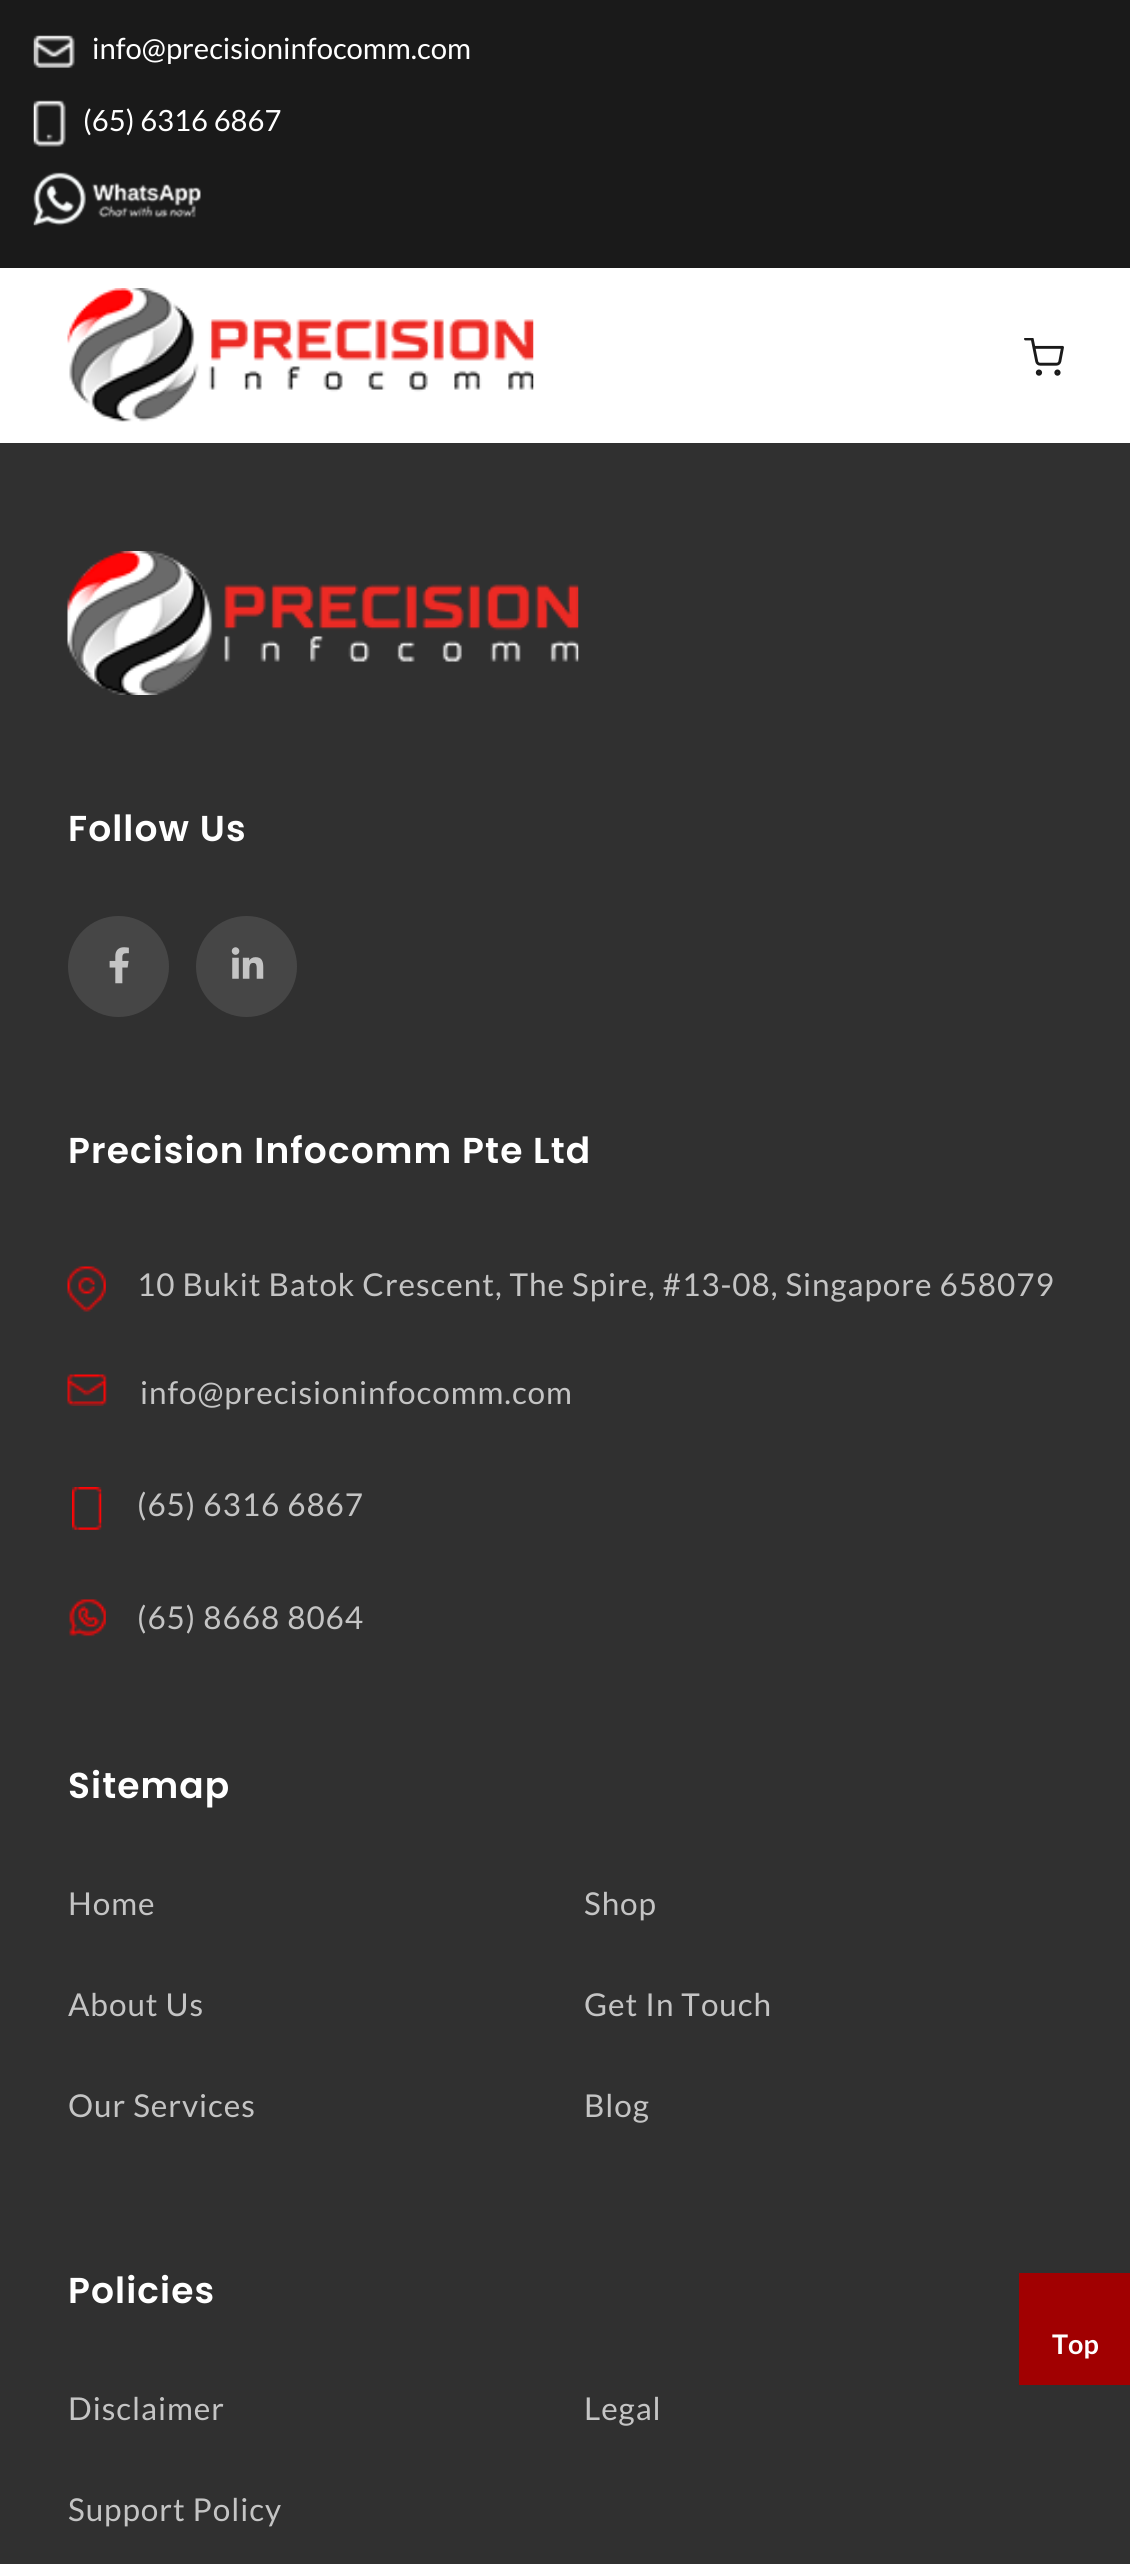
import math
import cairo

surface = cairo.ImageSurface(cairo.FORMAT_RGB24, 1130, 2564)
cr = cairo.Context(surface)
options = cairo.FontOptions()
options.set_hint_metrics(cairo.HINT_METRICS_OFF)
options.set_hint_style(cairo.HINT_STYLE_NONE)
cr.set_font_options(options)
cr.set_miter_limit(4)


def rgb(code):
    cr.set_source_rgb(*(v / 255 for v in bytes.fromhex(code[-6:])))


def tracked(x, y, s, letter, word):
    cr.move_to(x, y)
    for ch in s:
        cr.show_text(ch)
        cr.rel_move_to(letter + word * (ch == ' '), 0)


def image(path, x, y, w, h):
    cr.save()
    cr.set_source_surface(cairo.ImageSurface.create_from_png(path), x, y)
    cr.rectangle(x, y, w, h)
    cr.fill()
    cr.restore()


rgb("#303030")
cr.paint()
rgb("#1a1a1a")
cr.rectangle(0, 0, 1130, 268)
cr.fill()
image("img/1.png", 33, 35, 42, 33)
image("img/2.png", 33, 100, 33, 47)
image("img/3.png", 33, 172, 168, 54)
rgb("#ffffff")
cr.rectangle(0, 268, 1130, 175)
cr.fill()
image("img/4.png", 67, 288, 467, 134)
image("img/5.png", 1024, 338, 40, 38)
image("img/6.png", 67, 551, 512, 144)
rgb("#464646")
cr.arc(118.5, 966.5, 50.5, 0, 2 * math.pi)
cr.fill()
image("img/7.png", 109, 947, 20, 37)
cr.arc(246.5, 966.5, 50.5, 0, 2 * math.pi)
cr.fill()
image("img/8.png", 231, 947, 33, 32)
image("img/9.png", 67, 1266, 39, 46)
image("img/10.png", 67, 1374, 40, 32)
image("img/11.png", 72, 1487, 30, 43)
image("img/12.png", 69, 1599, 37, 38)
rgb("#a10001")
cr.rectangle(1019, 2273, 111, 112)
cr.fill()
cr.select_font_face("Lato")
cr.set_font_size(29.25)
rgb("#ffffff")
cr.move_to(92, 59)
cr.show_text("info@precisioninfocomm.com")
cr.move_to(83, 131)
cr.show_text("(65) 6316 6867")
cr.select_font_face("Poppins SemiBold")
cr.set_font_size(36)
tracked(68, 841, "Follow Us", 1.1, 0)
tracked(68, 1163, "Precision Infocomm Pte Ltd", 1.1, 0)
cr.select_font_face("Lato")
cr.set_font_size(31.5)
rgb("#c4c4c4")
for x, y, s in [
    (137, 1296, "10 Bukit Batok Crescent, The Spire, #13-08, Singapore 658079"),
    (140, 1404, "info@precisioninfocomm.com"),
    (137, 1516, "(65) 6316 6867"),
    (137, 1629, "(65) 8668 8064"),
]:
    tracked(x, y, s, 0.95, 0)
cr.select_font_face("Poppins SemiBold")
cr.set_font_size(36)
rgb("#ffffff")
tracked(68, 1798, "Sitemap", 1.1, 0)
cr.select_font_face("Lato")
cr.set_font_size(31.5)
rgb("#c4c4c4")
for x, y, s in [
    (68, 1915, "Home"),
    (584, 1915, "Shop"),
    (68, 2016, "About Us"),
    (584, 2016, "Get In Touch"),
    (68, 2117, "Our Services"),
    (584, 2117, "Blog"),
]:
    tracked(x, y, s, 0.95, 0)
cr.select_font_face("Poppins SemiBold")
cr.set_font_size(36)
rgb("#ffffff")
tracked(68, 2303, "Policies", 1.1, 0)
cr.select_font_face("Lato")
cr.set_font_size(31.5)
rgb("#c4c4c4")
for x, y, s in [
    (68, 2420, "Disclaimer"),
    (584, 2420, "Legal"),
    (68, 2521, "Support Policy"),
]:
    tracked(x, y, s, 0.95, 0)
cr.select_font_face("Lato", cairo.FONT_SLANT_NORMAL, cairo.FONT_WEIGHT_BOLD)
cr.set_font_size(27)
rgb("#ffffff")
cr.move_to(1052, 2354)
cr.show_text("Top")
surface.write_to_png("page.png")
